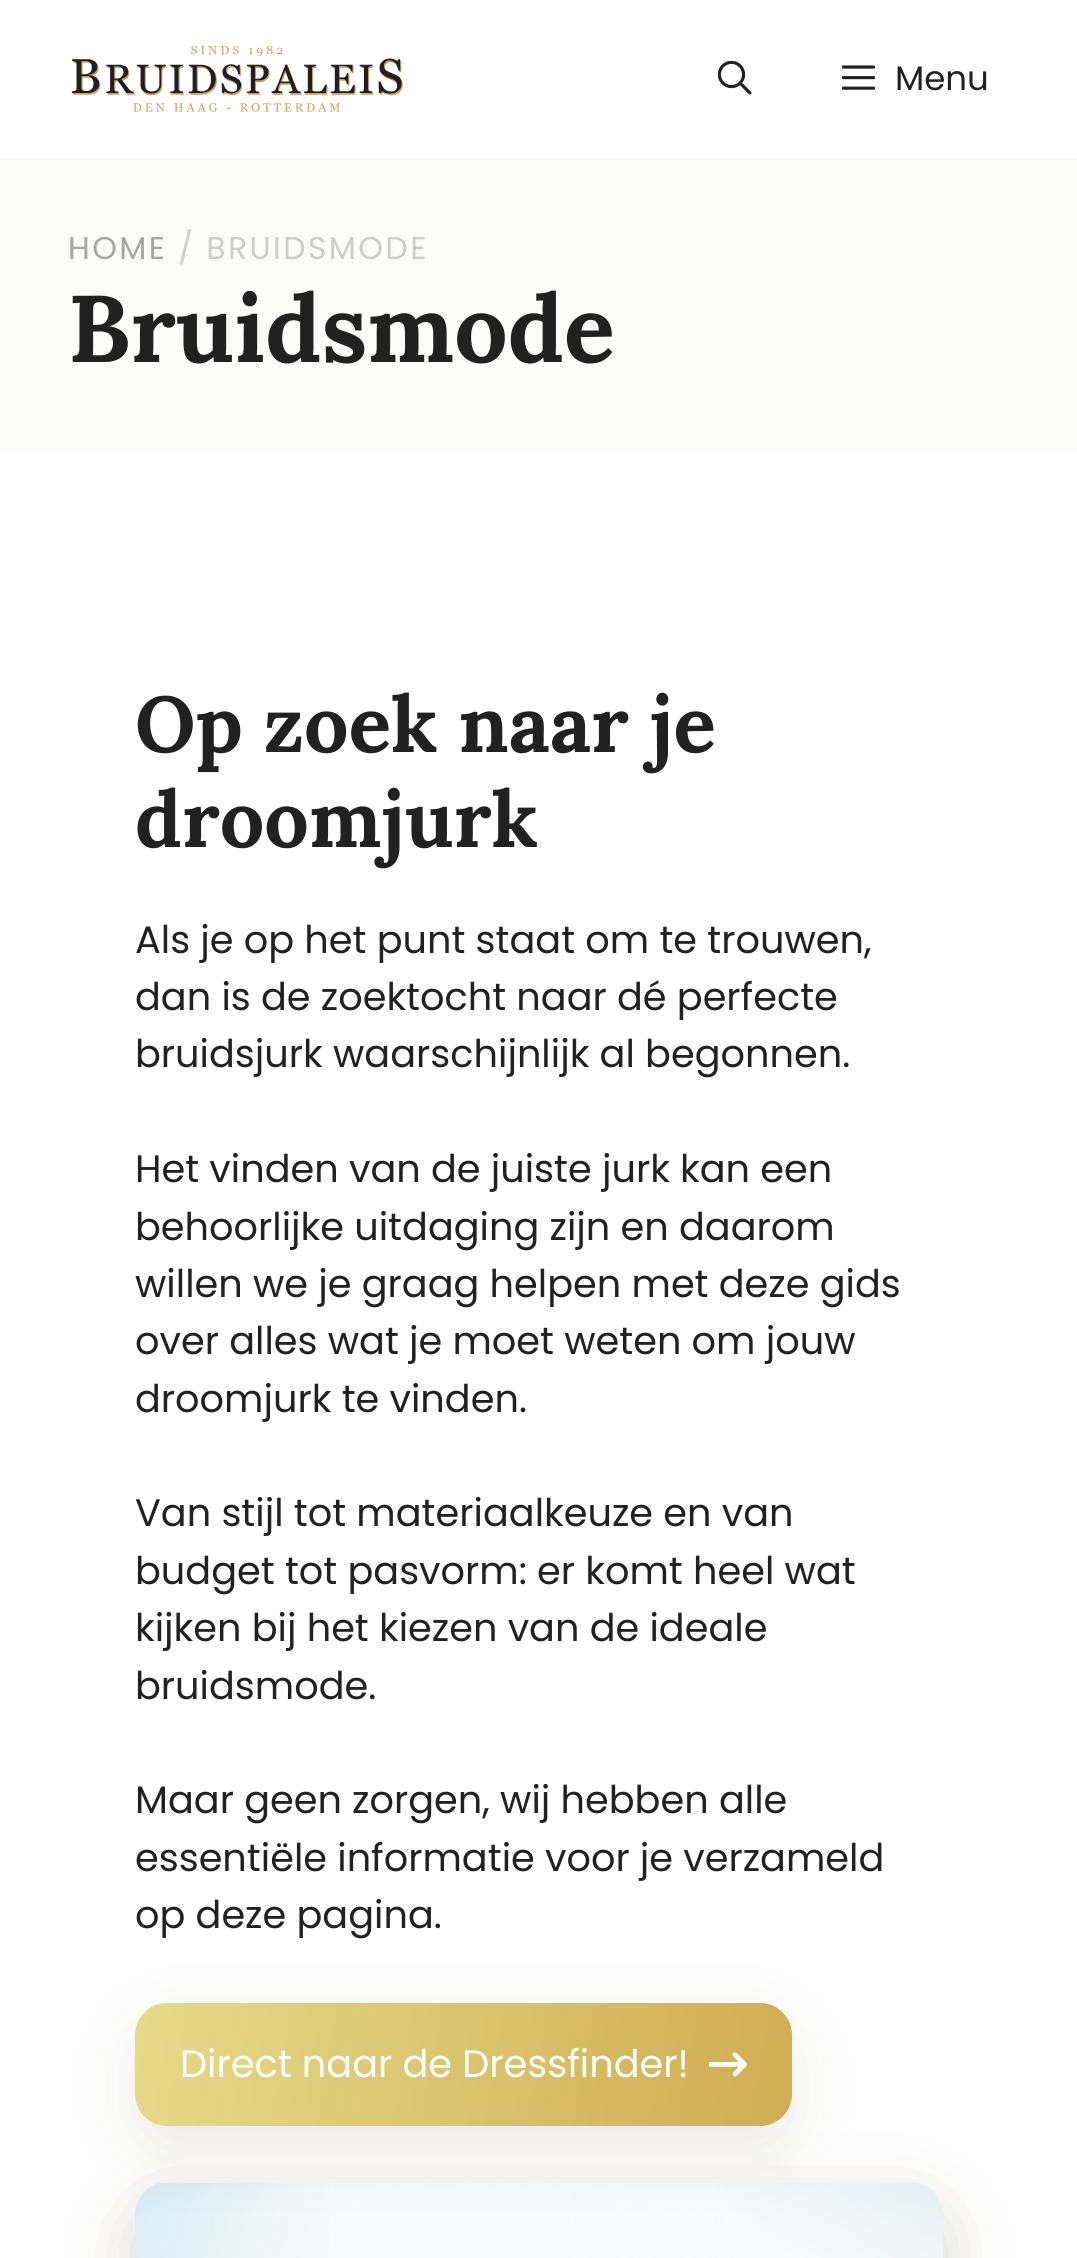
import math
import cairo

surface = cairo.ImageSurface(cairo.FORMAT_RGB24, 1077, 2258)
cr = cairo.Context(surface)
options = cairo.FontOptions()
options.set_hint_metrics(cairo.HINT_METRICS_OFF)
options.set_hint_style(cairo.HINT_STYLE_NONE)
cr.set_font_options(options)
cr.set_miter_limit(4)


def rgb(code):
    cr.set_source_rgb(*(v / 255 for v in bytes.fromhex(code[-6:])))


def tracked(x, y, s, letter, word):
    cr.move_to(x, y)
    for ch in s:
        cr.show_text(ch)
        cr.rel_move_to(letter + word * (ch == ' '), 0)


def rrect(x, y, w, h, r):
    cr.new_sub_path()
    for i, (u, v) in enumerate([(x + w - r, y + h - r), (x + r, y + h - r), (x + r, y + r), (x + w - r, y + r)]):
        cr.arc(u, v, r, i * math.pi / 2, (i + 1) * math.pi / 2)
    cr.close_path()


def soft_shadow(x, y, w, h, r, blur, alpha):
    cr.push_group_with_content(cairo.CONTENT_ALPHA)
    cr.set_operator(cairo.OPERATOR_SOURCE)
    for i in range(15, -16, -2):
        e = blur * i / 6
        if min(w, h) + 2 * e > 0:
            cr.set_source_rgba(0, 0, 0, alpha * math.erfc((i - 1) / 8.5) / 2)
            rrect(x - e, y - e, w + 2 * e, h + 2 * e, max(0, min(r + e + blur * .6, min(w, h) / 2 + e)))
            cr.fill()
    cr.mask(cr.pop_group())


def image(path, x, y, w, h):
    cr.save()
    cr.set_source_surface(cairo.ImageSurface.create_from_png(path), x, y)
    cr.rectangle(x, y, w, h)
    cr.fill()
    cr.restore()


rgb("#fbfbfa")
cr.paint()
rgb("#ffffff")
cr.rectangle(0, 0, 1077, 158)
cr.fill()
image("img/1.png", 71, 45, 332, 67)
image("img/2.png", 718, 61, 34, 34)
image("img/3.png", 842, 65, 33, 25)
cr.rectangle(0, 452, 1077, 1806)
cr.fill()
rgb("#382b0f")
soft_shadow(135, 2205, 808, 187, 32, 34, 0.2)
image("img/5.png", 135, 2182, 808, 76)
soft_shadow(135, 2025, 657, 124, 32, 34, 0.1)
gradient = cairo.LinearGradient(134, 2006, 793, 2122)
gradient.add_color_stop_rgba(0, 0.902, 0.855, 0.541, 1)
gradient.add_color_stop_rgba(1, 0.812, 0.678, 0.325, 1)
cr.set_source(gradient)
rrect(135, 2003, 657, 123, 32)
cr.fill()
image("img/4.png", 709, 2052, 38, 25)
cr.select_font_face("Poppins")
cr.set_font_size(34)
rgb("#212121")
cr.move_to(895, 90)
cr.show_text("Menu")
cr.set_font_size(31.5)
rgb("#a7a59e")
tracked(68, 259, "HOME", 2.4, 0)
rgb("#cecdc9")
tracked(178, 259, "/ BRUIDSMODE", 2.4, 0)
cr.select_font_face("Lora", cairo.FONT_SLANT_NORMAL, cairo.FONT_WEIGHT_BOLD)
cr.set_font_size(94.5)
rgb("#212121")
cr.move_to(68, 362)
cr.show_text("Bruidsmode")
cr.set_font_size(78.75)
cr.move_to(135, 752)
cr.show_text("Op zoek naar je")
cr.move_to(135, 847)
cr.show_text("droomjurk")
cr.select_font_face("Poppins")
cr.set_font_size(38.25)
for x, y, s in [
    (135, 953, "Als je op het punt staat om te trouwen,"),
    (135, 1010, "dan is de zoektocht naar dé perfecte"),
    (135, 1067, "bruidsjurk waarschijnlijk al begonnen."),
    (135, 1182, "Het vinden van de juiste jurk kan een"),
    (135, 1240, "behoorlijke uitdaging zijn en daarom"),
    (135, 1297, "willen we je graag helpen met deze gids"),
    (135, 1354, "over alles wat je moet weten om jouw"),
    (135, 1412, "droomjurk te vinden."),
    (135, 1526, "Van stijl tot materiaalkeuze en van"),
    (135, 1584, "budget tot pasvorm: er komt heel wat"),
    (135, 1641, "kijken bij het kiezen van de ideale"),
    (135, 1699, "bruidsmode."),
    (135, 1813, "Maar geen zorgen, wij hebben alle"),
    (135, 1871, "essentiële informatie voor je verzameld"),
    (135, 1928, "op deze pagina."),
]:
    cr.move_to(x, y)
    cr.show_text(s)
rgb("#ffffff")
cr.move_to(180, 2077)
cr.show_text("Direct naar de Dressfinder!")
surface.write_to_png("page.png")
